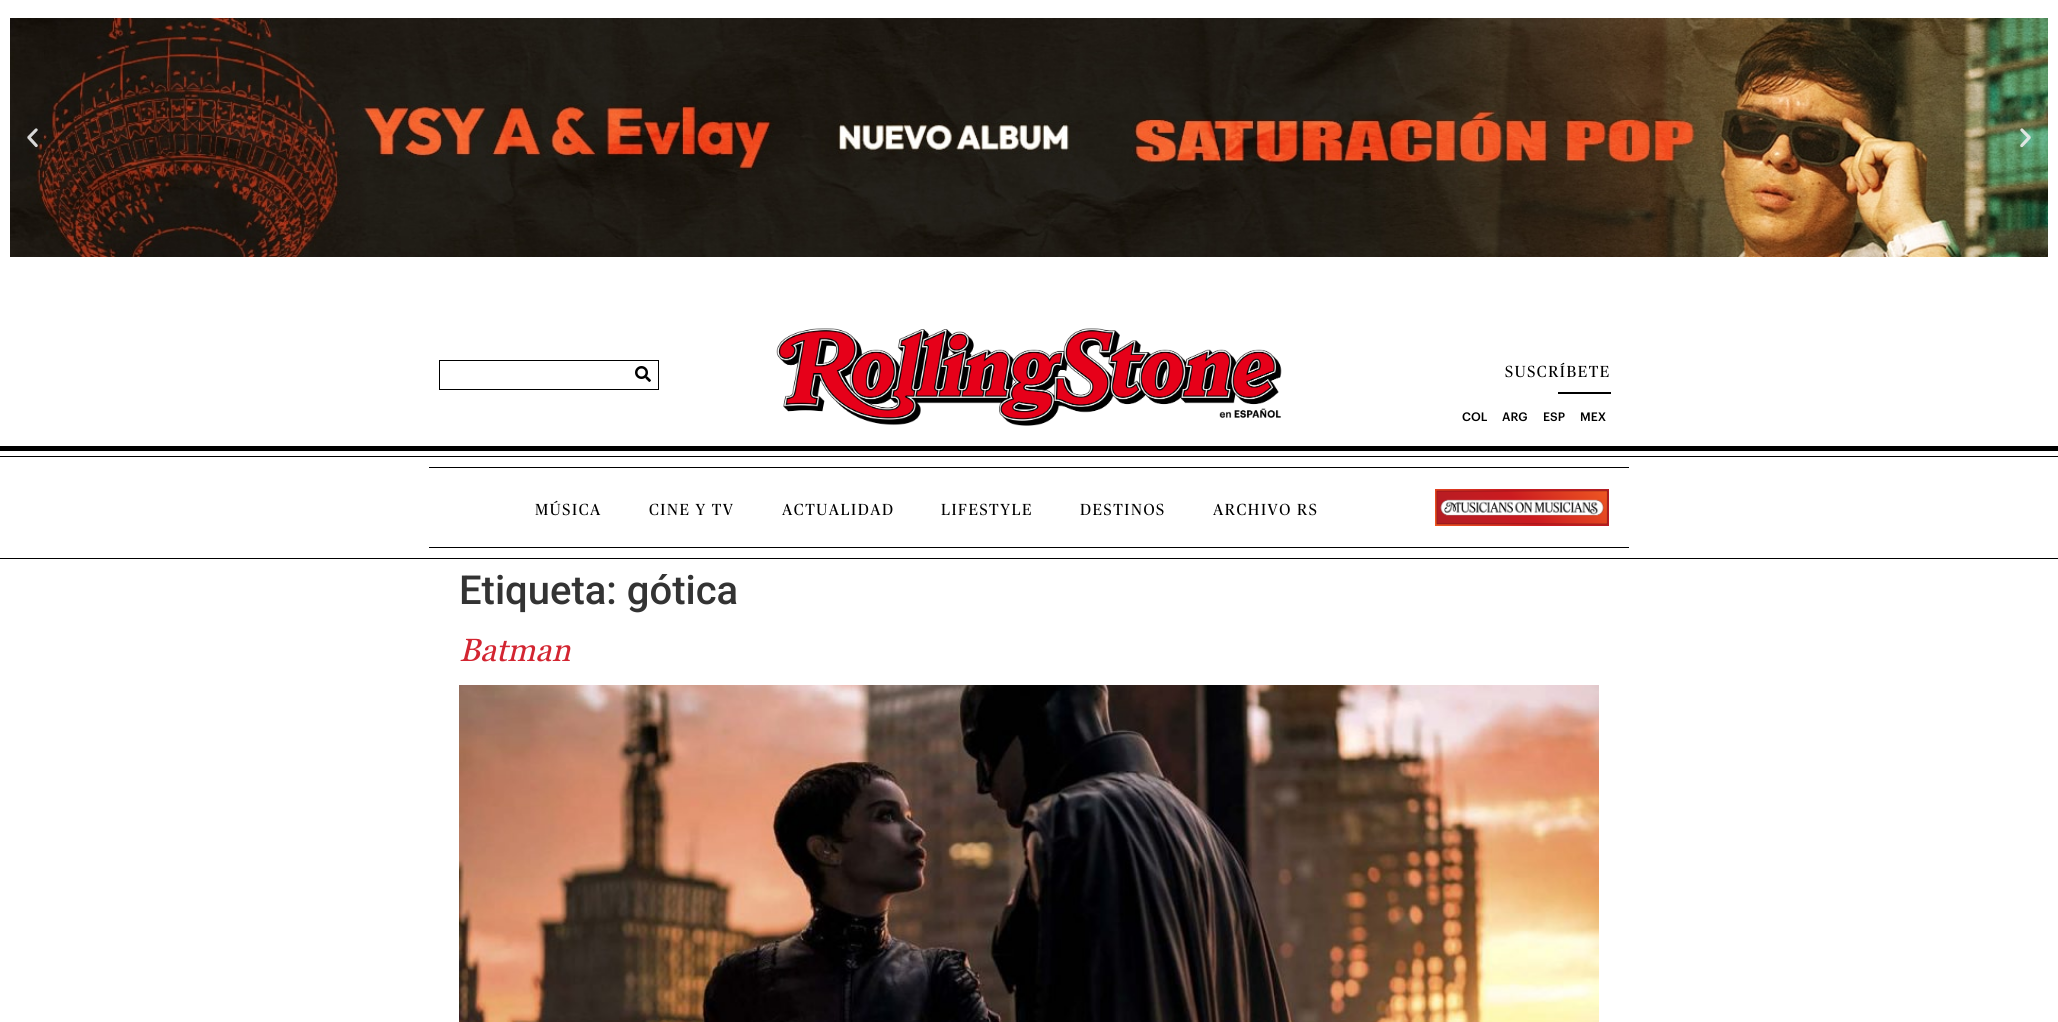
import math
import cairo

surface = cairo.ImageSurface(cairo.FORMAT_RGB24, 2058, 1022)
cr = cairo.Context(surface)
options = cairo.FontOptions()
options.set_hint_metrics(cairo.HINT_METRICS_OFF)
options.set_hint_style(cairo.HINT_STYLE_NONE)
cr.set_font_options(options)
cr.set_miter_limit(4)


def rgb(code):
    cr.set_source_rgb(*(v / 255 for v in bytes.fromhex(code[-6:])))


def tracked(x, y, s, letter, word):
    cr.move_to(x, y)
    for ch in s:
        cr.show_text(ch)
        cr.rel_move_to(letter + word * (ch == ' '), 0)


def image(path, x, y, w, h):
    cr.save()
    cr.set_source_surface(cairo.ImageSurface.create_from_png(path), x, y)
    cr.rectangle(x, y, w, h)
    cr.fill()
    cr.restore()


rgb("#ffffff")
cr.paint()
image("img/1.png", 10, 18, 2038, 239)
image("img/2.png", 27, 128, 11, 20)
image("img/3.png", 2020, 128, 11, 20)
cr.rectangle(439.5, 360.5, 219, 29)
rgb("#000000")
cr.set_line_width(1)
cr.stroke()
image("img/4.png", 635, 366, 16, 16)
image("img/5.png", 776, 328, 506, 98)
for x, y, w, h, color in [
    (1558, 392, 53, 2, "#000000"),
    (0, 446, 2058, 5, "#000000"),
    (0, 456, 2058, 1, "#000000"),
    (0, 558, 2058, 1, "#000000"),
    (429, 467, 1200, 1, "#000000"),
    (429, 547, 1200, 1, "#000000"),
]:
    rgb(color)
    cr.rectangle(x, y, w, h)
    cr.fill()
image("img/6.png", 1435, 489, 174, 37)
image("img/7.png", 459, 685, 1140, 337)
cr.select_font_face("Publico")
cr.set_font_size(16)
tracked(1505, 377, "SUSCRÍBETE", 1.6, 0)
cr.select_font_face("Graphik Medium")
cr.set_font_size(12)
for x, y, s in [
    (1462, 421, "COL"),
    (1502, 421, "ARG"),
    (1543, 421, "ESP"),
    (1580, 421, "MEX"),
]:
    cr.move_to(x, y)
    cr.show_text(s)
cr.select_font_face("Publico")
cr.set_font_size(16)
for x, y, s in [
    (535, 515, "MÚSICA"),
    (649, 515, "CINE Y TV"),
    (782, 515, "ACTUALIDAD"),
    (941, 515, "LIFESTYLE"),
    (1080, 515, "DESTINOS"),
    (1213, 515, "ARCHIVO RS"),
]:
    tracked(x, y, s, 1.6, 0)
cr.select_font_face("Roboto Medium")
cr.set_font_size(40)
rgb("#333333")
cr.move_to(459, 604)
cr.show_text("Etiqueta: gótica")
cr.select_font_face("Georgia", cairo.FONT_SLANT_ITALIC)
cr.set_font_size(32)
rgb("#d32531")
cr.move_to(459, 661)
cr.show_text("Batman")
surface.write_to_png("page.png")
